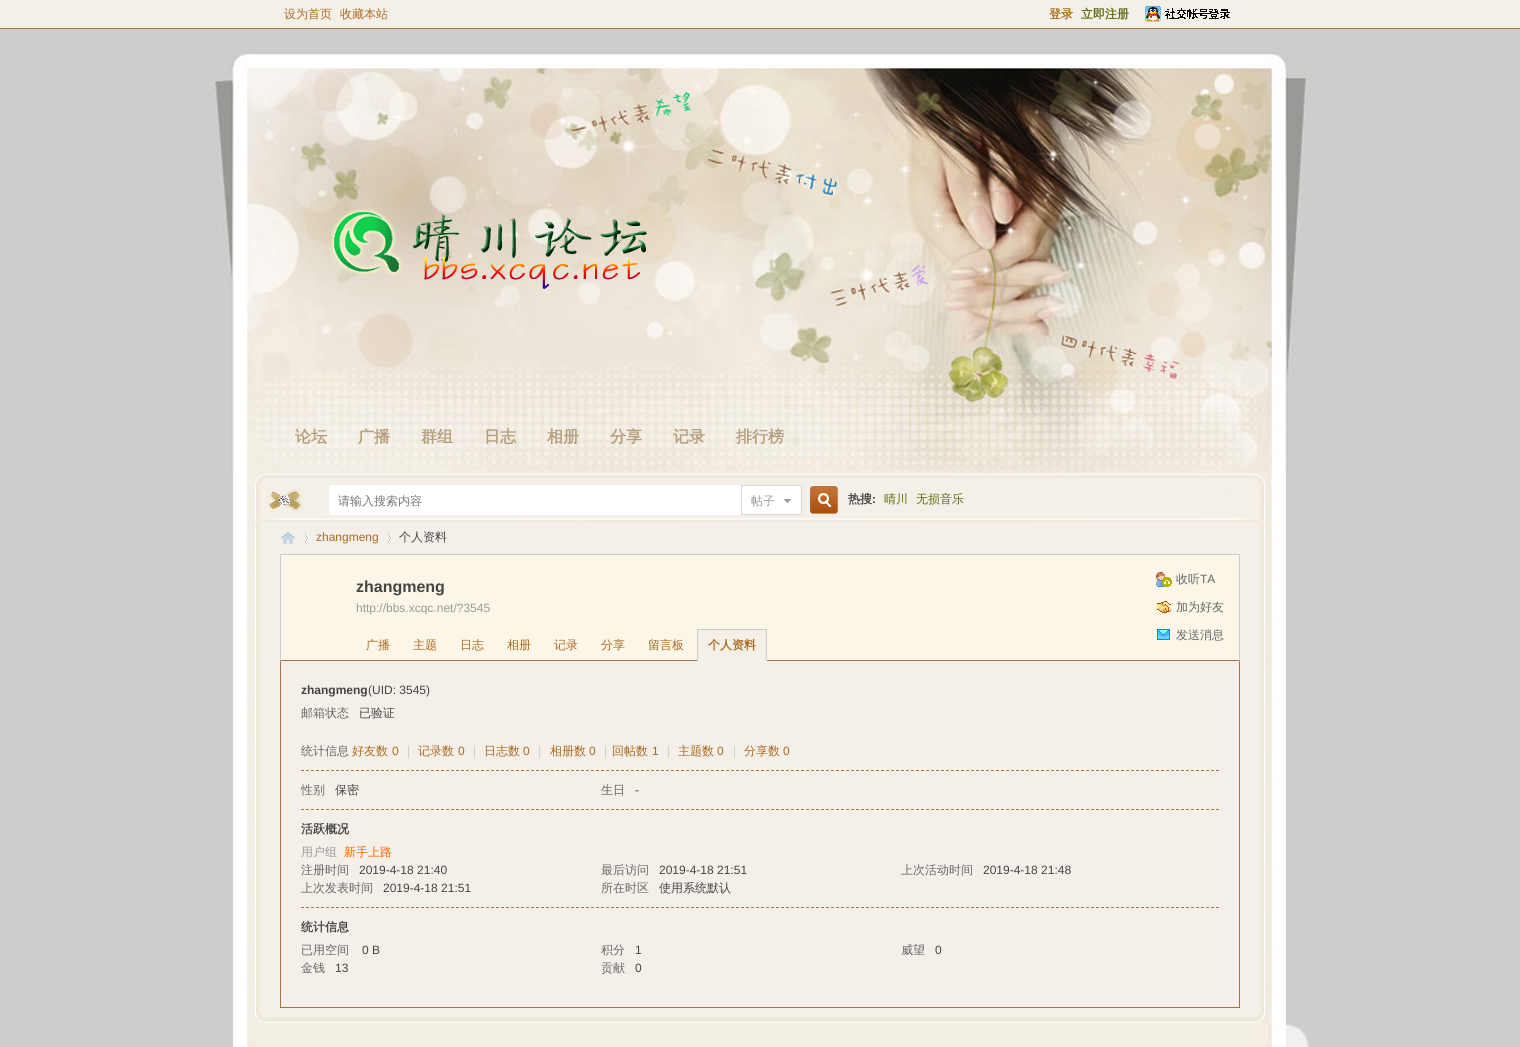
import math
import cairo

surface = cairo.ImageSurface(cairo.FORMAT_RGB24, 1520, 1047)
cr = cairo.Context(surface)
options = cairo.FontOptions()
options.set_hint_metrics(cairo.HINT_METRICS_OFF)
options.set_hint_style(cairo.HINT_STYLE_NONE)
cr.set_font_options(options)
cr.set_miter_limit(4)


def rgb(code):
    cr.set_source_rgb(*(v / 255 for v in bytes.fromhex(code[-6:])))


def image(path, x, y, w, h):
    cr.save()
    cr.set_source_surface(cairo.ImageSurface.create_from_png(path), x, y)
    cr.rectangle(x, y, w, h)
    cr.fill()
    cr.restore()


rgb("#cdcdcd")
cr.paint()
image("img/1.png", 233, 472, 1053, 551)
rgb("#f4f0e8")
cr.rectangle(0, 0, 1520, 28)
cr.fill()
rgb("#a17747")
cr.rectangle(0, 28, 1520, 1)
cr.fill()
image("img/2.png", 1145, 6, 85, 16)
image("img/3.png", 211, 29, 1097, 443)
image("img/4.png", 331, 209, 316, 80)
image("img/5.png", 255, 474, 59, 47)
image("img/6.png", 314, 474, 892, 47)
rgb("#ffffff")
cr.rectangle(329, 485, 412, 30)
cr.fill()
image("img/7.png", 810, 486, 28, 28)
image("img/8.png", 741, 485, 61, 30)
image("img/9.png", 1206, 474, 59, 47)
image("img/10.png", 255, 523, 1010, 490)
image("img/11.png", 280, 532, 16, 12)
image("img/12.png", 305, 533, 4, 10)
image("img/12.png", 388, 533, 4, 10)
for x, y, w, h, color in [
    (281, 555, 958, 105, "#fbf6e7"),
    (280, 554, 960, 1, "#cccccc"),
    (1239, 554, 1, 107, "#cccccc"),
    (280, 554, 1, 107, "#cccccc"),
]:
    rgb(color)
    cr.rectangle(x, y, w, h)
    cr.fill()
image("img/13.png", 1156, 572, 16, 15)
image("img/14.png", 1157, 601, 14, 12)
image("img/15.png", 1157, 629, 13, 11)
for x, y, w, h, color in [
    (281, 660, 958, 1, "#a17747"),
    (698, 630, 68, 30, "#f4f0e8"),
    (697, 629, 70, 1, "#cccccc"),
    (766, 629, 1, 32, "#cccccc"),
    (697, 660, 70, 1, "#f4f0e8"),
    (697, 629, 1, 32, "#cccccc"),
    (1239, 661, 1, 347, "#a17747"),
    (280, 1007, 960, 1, "#a17747"),
    (280, 661, 1, 347, "#a17747"),
]:
    rgb(color)
    cr.rectangle(x, y, w, h)
    cr.fill()
cr.new_path()
cr.move_to(301, 809.5)
cr.line_to(1219, 809.5)
cr.set_line_width(1)
cr.set_dash([3, 2])
cr.stroke()
cr.new_path()
cr.move_to(301, 770.5)
cr.line_to(1219, 770.5)
cr.stroke()
cr.new_path()
cr.move_to(301, 907.5)
cr.line_to(1219, 907.5)
cr.stroke()
image("img/16.png", 255, 1013, 10, 10)
image("img/17.png", 265, 1013, 990, 10)
image("img/18.png", 1255, 1013, 10, 10)
image("img/19.png", 233, 1023, 1076, 24)
cr.select_font_face("WenQuanYi Zen Hei Medium")
cr.set_font_size(12)
rgb("#aa6a21")
cr.move_to(284, 18)
cr.show_text("设为首页")
cr.move_to(340, 18)
cr.show_text("收藏本站")
cr.select_font_face("WenQuanYi Zen Hei", cairo.FONT_SLANT_NORMAL, cairo.FONT_WEIGHT_BOLD)
cr.move_to(1049, 18)
cr.show_text("登录")
rgb("#626a0f")
cr.move_to(1081, 18)
cr.show_text("立即注册")
cr.set_font_size(16)
rgb("#b6a07f")
for x, y, s in [
    (295, 442, "论坛"),
    (358, 442, "广播"),
    (421, 442, "群组"),
    (484, 442, "日志"),
    (547, 442, "相册"),
    (610, 442, "分享"),
    (673, 442, "记录"),
    (736, 442, "排行榜"),
]:
    cr.move_to(x, y)
    cr.show_text(s)
cr.set_font_size(12)
rgb("#444444")
cr.move_to(848, 503)
cr.show_text("热搜")
cr.select_font_face("Liberation Sans", cairo.FONT_SLANT_NORMAL, cairo.FONT_WEIGHT_BOLD)
cr.move_to(872, 503)
cr.show_text(":")
cr.select_font_face("WenQuanYi Zen Hei Medium")
rgb("#626a0f")
cr.move_to(884, 503)
cr.show_text("晴川")
cr.move_to(916, 503)
cr.show_text("无损音乐")
rgb("#757575")
cr.move_to(338, 505)
cr.show_text("请输入搜索内容")
rgb("#999999")
cr.move_to(751, 505)
cr.show_text("帖子")
cr.select_font_face("Liberation Sans")
rgb("#aa6a21")
cr.move_to(316, 541)
cr.show_text("zhangmeng")
cr.select_font_face("WenQuanYi Zen Hei Medium")
rgb("#444444")
cr.move_to(399, 541)
cr.show_text("个人资料")
cr.select_font_face("Liberation Sans", cairo.FONT_SLANT_NORMAL, cairo.FONT_WEIGHT_BOLD)
cr.set_font_size(16)
cr.move_to(356, 592)
cr.show_text("zhangmeng")
cr.select_font_face("Liberation Sans")
cr.set_font_size(12)
rgb("#999999")
cr.move_to(356, 612)
cr.show_text("http://bbs.xcqc.net/?3545")
cr.select_font_face("WenQuanYi Zen Hei Medium")
rgb("#666666")
cr.move_to(1176, 583)
cr.show_text("收听")
cr.select_font_face("Liberation Sans")
cr.move_to(1200, 583)
cr.show_text("TA")
cr.select_font_face("WenQuanYi Zen Hei Medium")
cr.move_to(1176, 611)
cr.show_text("加为好友")
cr.move_to(1176, 639)
cr.show_text("发送消息")
rgb("#aa6a21")
for x, y, s in [
    (366, 649, "广播"),
    (413, 649, "主题"),
    (460, 649, "日志"),
    (507, 649, "相册"),
    (554, 649, "记录"),
    (601, 649, "分享"),
    (648, 649, "留言板"),
]:
    cr.move_to(x, y)
    cr.show_text(s)
cr.select_font_face("WenQuanYi Zen Hei", cairo.FONT_SLANT_NORMAL, cairo.FONT_WEIGHT_BOLD)
cr.move_to(708, 649)
cr.show_text("个人资料")
cr.select_font_face("Liberation Sans", cairo.FONT_SLANT_NORMAL, cairo.FONT_WEIGHT_BOLD)
rgb("#444444")
cr.move_to(301, 694)
cr.show_text("zhangmeng")
cr.select_font_face("Liberation Sans")
cr.move_to(368, 694)
cr.show_text("(UID: 3545)")
cr.select_font_face("WenQuanYi Zen Hei Medium")
rgb("#666666")
cr.move_to(301, 717)
cr.show_text("邮箱状态")
rgb("#444444")
cr.move_to(359, 717)
cr.show_text("已验证")
rgb("#666666")
cr.move_to(301, 755)
cr.show_text("统计信息")
rgb("#aa6a21")
cr.move_to(352, 755)
cr.show_text("好友数")
cr.select_font_face("Liberation Sans")
cr.move_to(392, 755)
cr.show_text("0")
rgb("#cccccc")
cr.move_to(407, 755)
cr.show_text("|")
cr.select_font_face("WenQuanYi Zen Hei Medium")
rgb("#aa6a21")
cr.move_to(418, 755)
cr.show_text("记录数")
cr.select_font_face("Liberation Sans")
cr.move_to(458, 755)
cr.show_text("0")
rgb("#cccccc")
cr.move_to(473, 755)
cr.show_text("|")
cr.select_font_face("WenQuanYi Zen Hei Medium")
rgb("#aa6a21")
cr.move_to(484, 755)
cr.show_text("日志数")
cr.select_font_face("Liberation Sans")
cr.move_to(523, 755)
cr.show_text("0")
rgb("#cccccc")
cr.move_to(538, 755)
cr.show_text("|")
cr.select_font_face("WenQuanYi Zen Hei Medium")
rgb("#aa6a21")
cr.move_to(550, 755)
cr.show_text("相册数")
cr.select_font_face("Liberation Sans")
cr.move_to(589, 755)
cr.show_text("0")
rgb("#cccccc")
cr.move_to(604, 755)
cr.show_text("|")
cr.select_font_face("WenQuanYi Zen Hei Medium")
rgb("#aa6a21")
cr.move_to(612, 755)
cr.show_text("回帖数")
cr.select_font_face("Liberation Sans")
cr.move_to(652, 755)
cr.show_text("1")
rgb("#cccccc")
cr.move_to(667, 755)
cr.show_text("|")
cr.select_font_face("WenQuanYi Zen Hei Medium")
rgb("#aa6a21")
cr.move_to(678, 755)
cr.show_text("主题数")
cr.select_font_face("Liberation Sans")
cr.move_to(717, 755)
cr.show_text("0")
rgb("#cccccc")
cr.move_to(733, 755)
cr.show_text("|")
cr.select_font_face("WenQuanYi Zen Hei Medium")
rgb("#aa6a21")
cr.move_to(744, 755)
cr.show_text("分享数")
cr.select_font_face("Liberation Sans")
cr.move_to(783, 755)
cr.show_text("0")
cr.select_font_face("WenQuanYi Zen Hei Medium")
rgb("#666666")
cr.move_to(301, 794)
cr.show_text("性别")
rgb("#444444")
cr.move_to(335, 794)
cr.show_text("保密")
rgb("#666666")
cr.move_to(601, 794)
cr.show_text("生日")
cr.select_font_face("Liberation Sans")
rgb("#444444")
cr.move_to(635, 794)
cr.show_text("-")
cr.select_font_face("WenQuanYi Zen Hei", cairo.FONT_SLANT_NORMAL, cairo.FONT_WEIGHT_BOLD)
cr.move_to(301, 833)
cr.show_text("活跃概况")
cr.select_font_face("WenQuanYi Zen Hei Medium")
rgb("#999999")
cr.move_to(301, 856)
cr.show_text("用户组")
rgb("#ff6600")
cr.move_to(344, 856)
cr.show_text("新手上路")
rgb("#666666")
cr.move_to(301, 874)
cr.show_text("注册时间")
cr.select_font_face("Liberation Sans")
rgb("#444444")
cr.move_to(359, 874)
cr.show_text("2019-4-18 21:40")
cr.select_font_face("WenQuanYi Zen Hei Medium")
rgb("#666666")
cr.move_to(601, 874)
cr.show_text("最后访问")
cr.select_font_face("Liberation Sans")
rgb("#444444")
cr.move_to(659, 874)
cr.show_text("2019-4-18 21:51")
cr.select_font_face("WenQuanYi Zen Hei Medium")
rgb("#666666")
cr.move_to(901, 874)
cr.show_text("上次活动时间")
cr.select_font_face("Liberation Sans")
rgb("#444444")
cr.move_to(983, 874)
cr.show_text("2019-4-18 21:48")
cr.select_font_face("WenQuanYi Zen Hei Medium")
rgb("#666666")
cr.move_to(301, 892)
cr.show_text("上次发表时间")
cr.select_font_face("Liberation Sans")
rgb("#444444")
cr.move_to(383, 892)
cr.show_text("2019-4-18 21:51")
cr.select_font_face("WenQuanYi Zen Hei Medium")
rgb("#666666")
cr.move_to(601, 892)
cr.show_text("所在时区")
rgb("#444444")
cr.move_to(659, 892)
cr.show_text("使用系统默认")
cr.select_font_face("WenQuanYi Zen Hei", cairo.FONT_SLANT_NORMAL, cairo.FONT_WEIGHT_BOLD)
cr.move_to(301, 931)
cr.show_text("统计信息")
cr.select_font_face("WenQuanYi Zen Hei Medium")
rgb("#666666")
cr.move_to(301, 954)
cr.show_text("已用空间")
cr.select_font_face("Liberation Sans")
rgb("#444444")
cr.move_to(362, 954)
cr.show_text("0 B")
cr.select_font_face("WenQuanYi Zen Hei Medium")
rgb("#666666")
cr.move_to(601, 954)
cr.show_text("积分")
cr.select_font_face("Liberation Sans")
rgb("#444444")
cr.move_to(635, 954)
cr.show_text("1")
cr.select_font_face("WenQuanYi Zen Hei Medium")
rgb("#666666")
cr.move_to(901, 954)
cr.show_text("威望")
cr.select_font_face("Liberation Sans")
rgb("#444444")
cr.move_to(935, 954)
cr.show_text("0")
cr.select_font_face("WenQuanYi Zen Hei Medium")
rgb("#666666")
cr.move_to(301, 972)
cr.show_text("金钱")
cr.select_font_face("Liberation Sans")
rgb("#444444")
cr.move_to(335, 972)
cr.show_text("13")
cr.select_font_face("WenQuanYi Zen Hei Medium")
rgb("#666666")
cr.move_to(601, 972)
cr.show_text("贡献")
cr.select_font_face("Liberation Sans")
rgb("#444444")
cr.move_to(635, 972)
cr.show_text("0")
surface.write_to_png("page.png")
